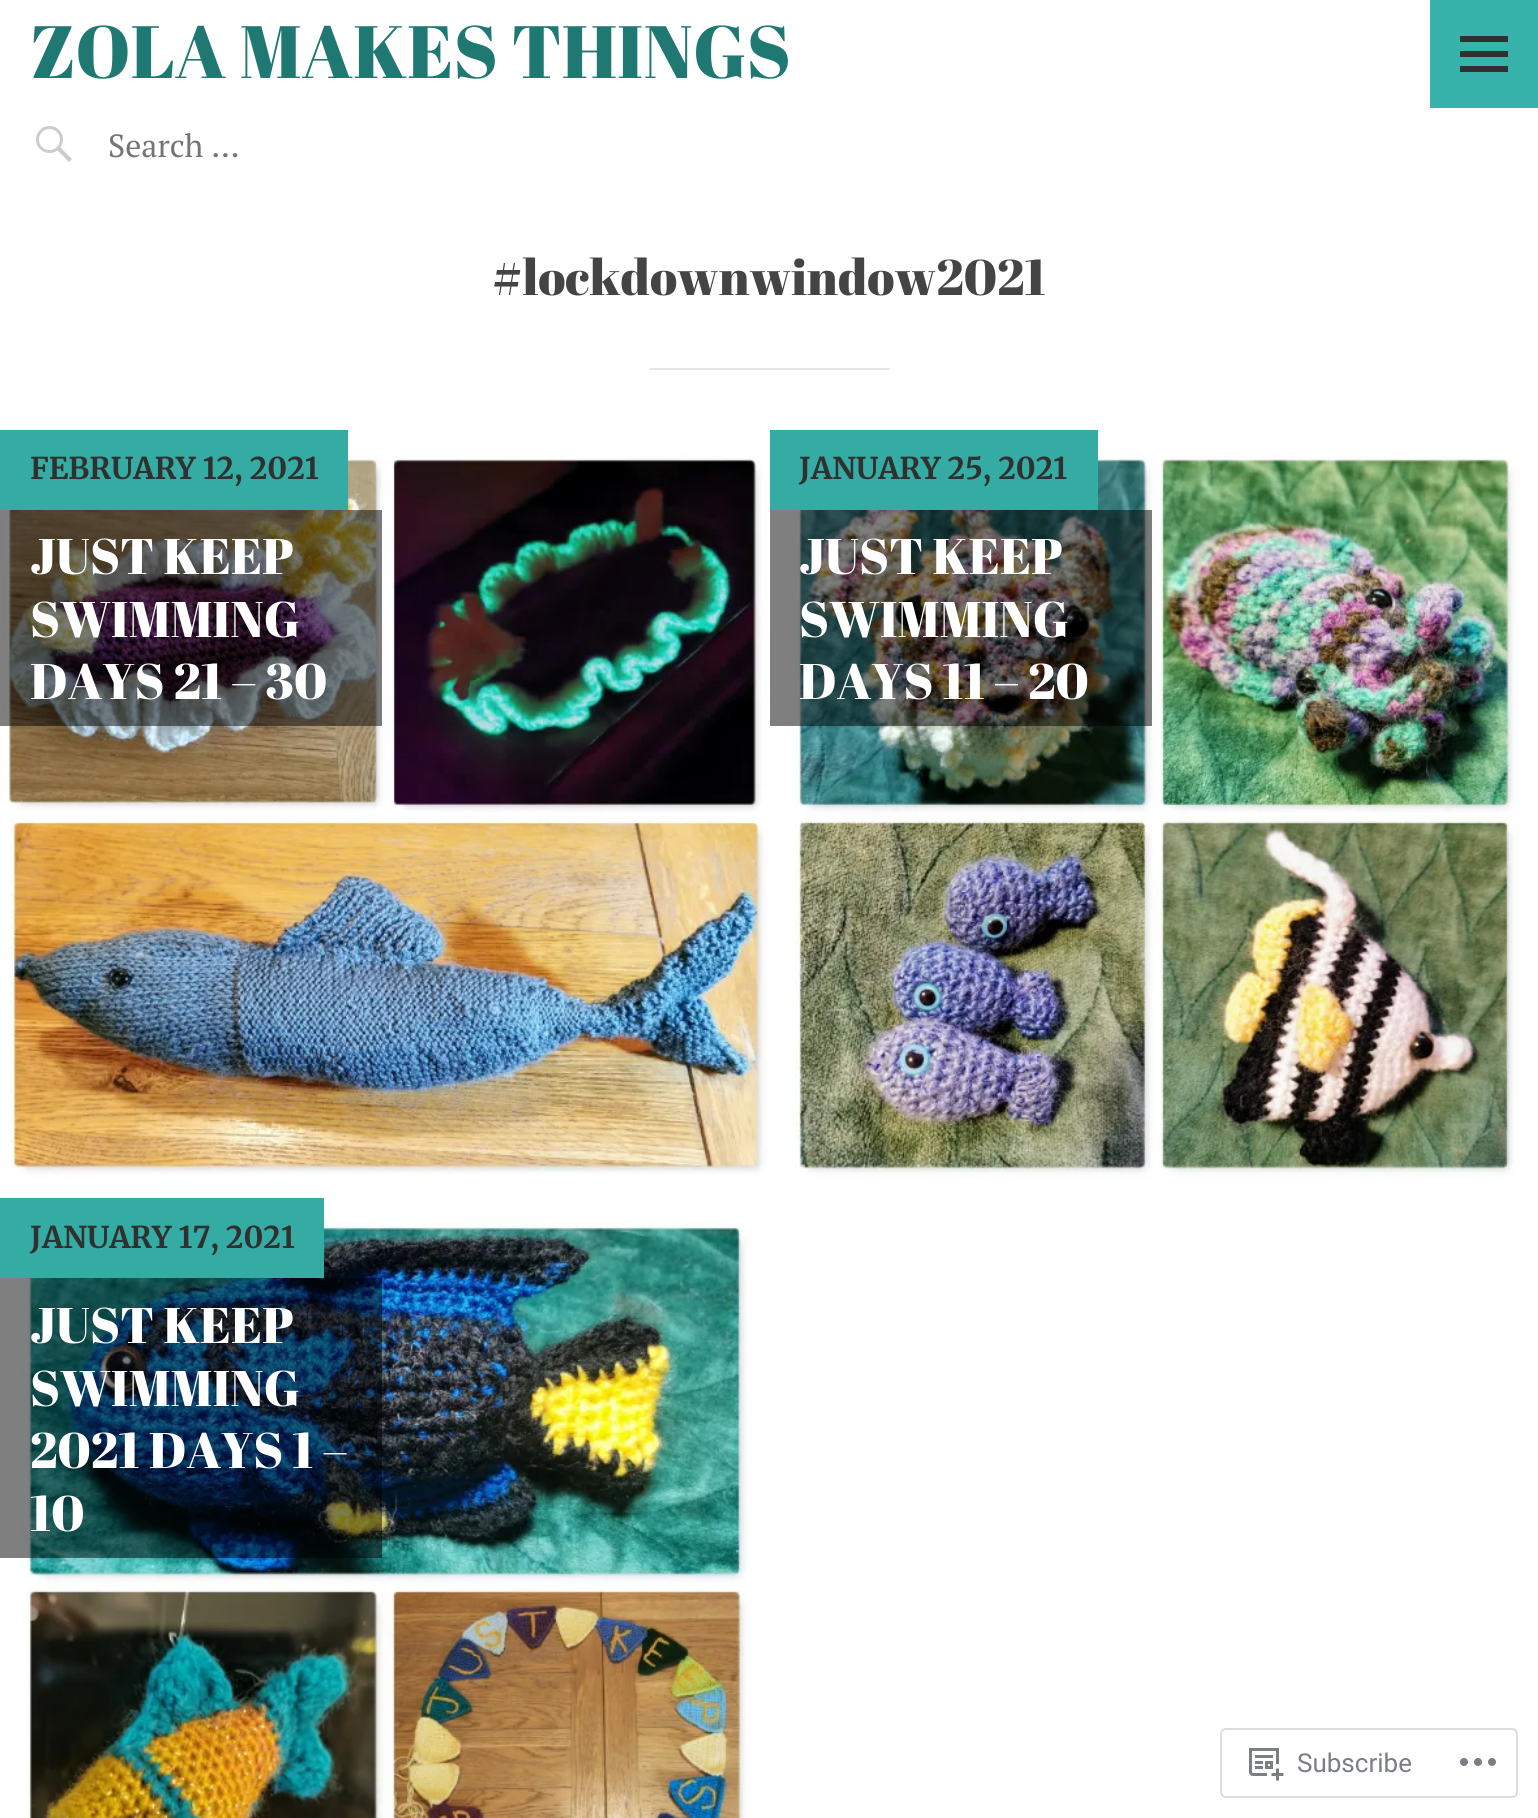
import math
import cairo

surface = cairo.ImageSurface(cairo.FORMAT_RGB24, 1538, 1818)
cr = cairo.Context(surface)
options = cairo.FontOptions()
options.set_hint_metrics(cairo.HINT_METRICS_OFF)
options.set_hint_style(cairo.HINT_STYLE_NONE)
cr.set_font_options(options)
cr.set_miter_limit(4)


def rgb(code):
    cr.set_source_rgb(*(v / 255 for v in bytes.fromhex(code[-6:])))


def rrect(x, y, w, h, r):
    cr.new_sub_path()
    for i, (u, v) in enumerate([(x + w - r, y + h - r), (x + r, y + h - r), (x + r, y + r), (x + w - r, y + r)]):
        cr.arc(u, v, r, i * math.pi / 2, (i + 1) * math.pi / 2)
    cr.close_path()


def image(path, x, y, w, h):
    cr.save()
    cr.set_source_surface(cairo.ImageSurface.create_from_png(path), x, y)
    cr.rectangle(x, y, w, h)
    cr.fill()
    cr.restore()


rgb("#ffffff")
cr.paint()
rgb("#37b3ab")
cr.rectangle(1430, 0, 108, 108)
cr.fill()
rgb("#303030")
cr.new_path()
cr.move_to(1460, 72)
cr.line_to(1460, 66)
cr.line_to(1508, 66)
cr.line_to(1508, 72)
cr.close_path()
cr.move_to(1460, 36)
cr.line_to(1508, 36)
cr.line_to(1508, 42)
cr.line_to(1460, 42)
cr.close_path()
cr.move_to(1460, 57)
cr.line_to(1460, 51)
cr.line_to(1508, 51)
cr.line_to(1508, 57)
cr.close_path()
cr.fill()
image("img/1.png", 36, 126, 36, 36)
rgb("#e6e6e6")
cr.rectangle(650, 368, 240, 2)
cr.fill()
image("img/2.png", 0, 430, 770, 768)
rgb("#34aba3")
cr.rectangle(0, 430, 348, 80)
cr.fill()
cr.set_source_rgba(0, 0, 0, 0.5)
cr.rectangle(0, 510, 382, 216)
cr.fill()
image("img/3.png", 770, 430, 768, 768)
rgb("#34aba3")
cr.rectangle(770, 430, 328, 80)
cr.fill()
cr.set_source_rgba(0, 0, 0, 0.5)
cr.rectangle(770, 510, 382, 216)
cr.fill()
image("img/4.png", 0, 1198, 770, 620)
rgb("#34aba3")
cr.rectangle(0, 1198, 324, 80)
cr.fill()
cr.set_source_rgba(0, 0, 0, 0.5)
cr.rectangle(0, 1278, 382, 280)
cr.fill()
rrect(1221, 1729, 296, 68, 5)
rgb("#dddddf")
cr.stroke()
image("img/5.png", 1249, 1748, 35, 33)
image("img/6.png", 1460, 1758, 36, 8)
cr.select_font_face("Abril Fatface")
cr.set_font_size(74)
rgb("#207872")
cr.move_to(30, 78)
cr.show_text("ZOLA MAKES THINGS")
cr.select_font_face("PT Serif")
cr.set_font_size(32)
rgb("#757575")
cr.move_to(108, 157)
cr.show_text("Search …")
cr.select_font_face("Abril Fatface")
cr.set_font_size(50)
rgb("#444444")
cr.move_to(492, 295)
cr.show_text("#lockdownwindow2021")
cr.select_font_face("Merriweather", cairo.FONT_SLANT_NORMAL, cairo.FONT_WEIGHT_BOLD)
cr.set_font_size(30)
rgb("#303030")
cr.move_to(30, 479)
cr.show_text("FEBRUARY 12, 2021")
cr.select_font_face("Abril Fatface")
cr.set_font_size(50)
rgb("#ffffff")
for x, y, s in [
    (30, 574, "JUST KEEP"),
    (30, 637, "SWIMMING"),
    (30, 699, "DAYS 21 – 30"),
]:
    cr.move_to(x, y)
    cr.show_text(s)
cr.select_font_face("Merriweather", cairo.FONT_SLANT_NORMAL, cairo.FONT_WEIGHT_BOLD)
cr.set_font_size(30)
rgb("#303030")
cr.move_to(799, 479)
cr.show_text("JANUARY 25, 2021")
cr.select_font_face("Abril Fatface")
cr.set_font_size(50)
rgb("#ffffff")
for x, y, s in [
    (799, 574, "JUST KEEP"),
    (799, 637, "SWIMMING"),
    (799, 699, "DAYS 11 – 20"),
]:
    cr.move_to(x, y)
    cr.show_text(s)
cr.select_font_face("Merriweather", cairo.FONT_SLANT_NORMAL, cairo.FONT_WEIGHT_BOLD)
cr.set_font_size(30)
rgb("#303030")
cr.move_to(30, 1248)
cr.show_text("JANUARY 17, 2021")
cr.select_font_face("Abril Fatface")
cr.set_font_size(50)
rgb("#ffffff")
for x, y, s in [
    (30, 1343, "JUST KEEP"),
    (30, 1406, "SWIMMING"),
    (30, 1468, "2021 DAYS 1 –"),
    (30, 1531, "10"),
]:
    cr.move_to(x, y)
    cr.show_text(s)
cr.select_font_face("Roboto")
cr.set_font_size(26)
rgb("#7b7f85")
cr.move_to(1297, 1772)
cr.show_text("Subscribe")
surface.write_to_png("page.png")
